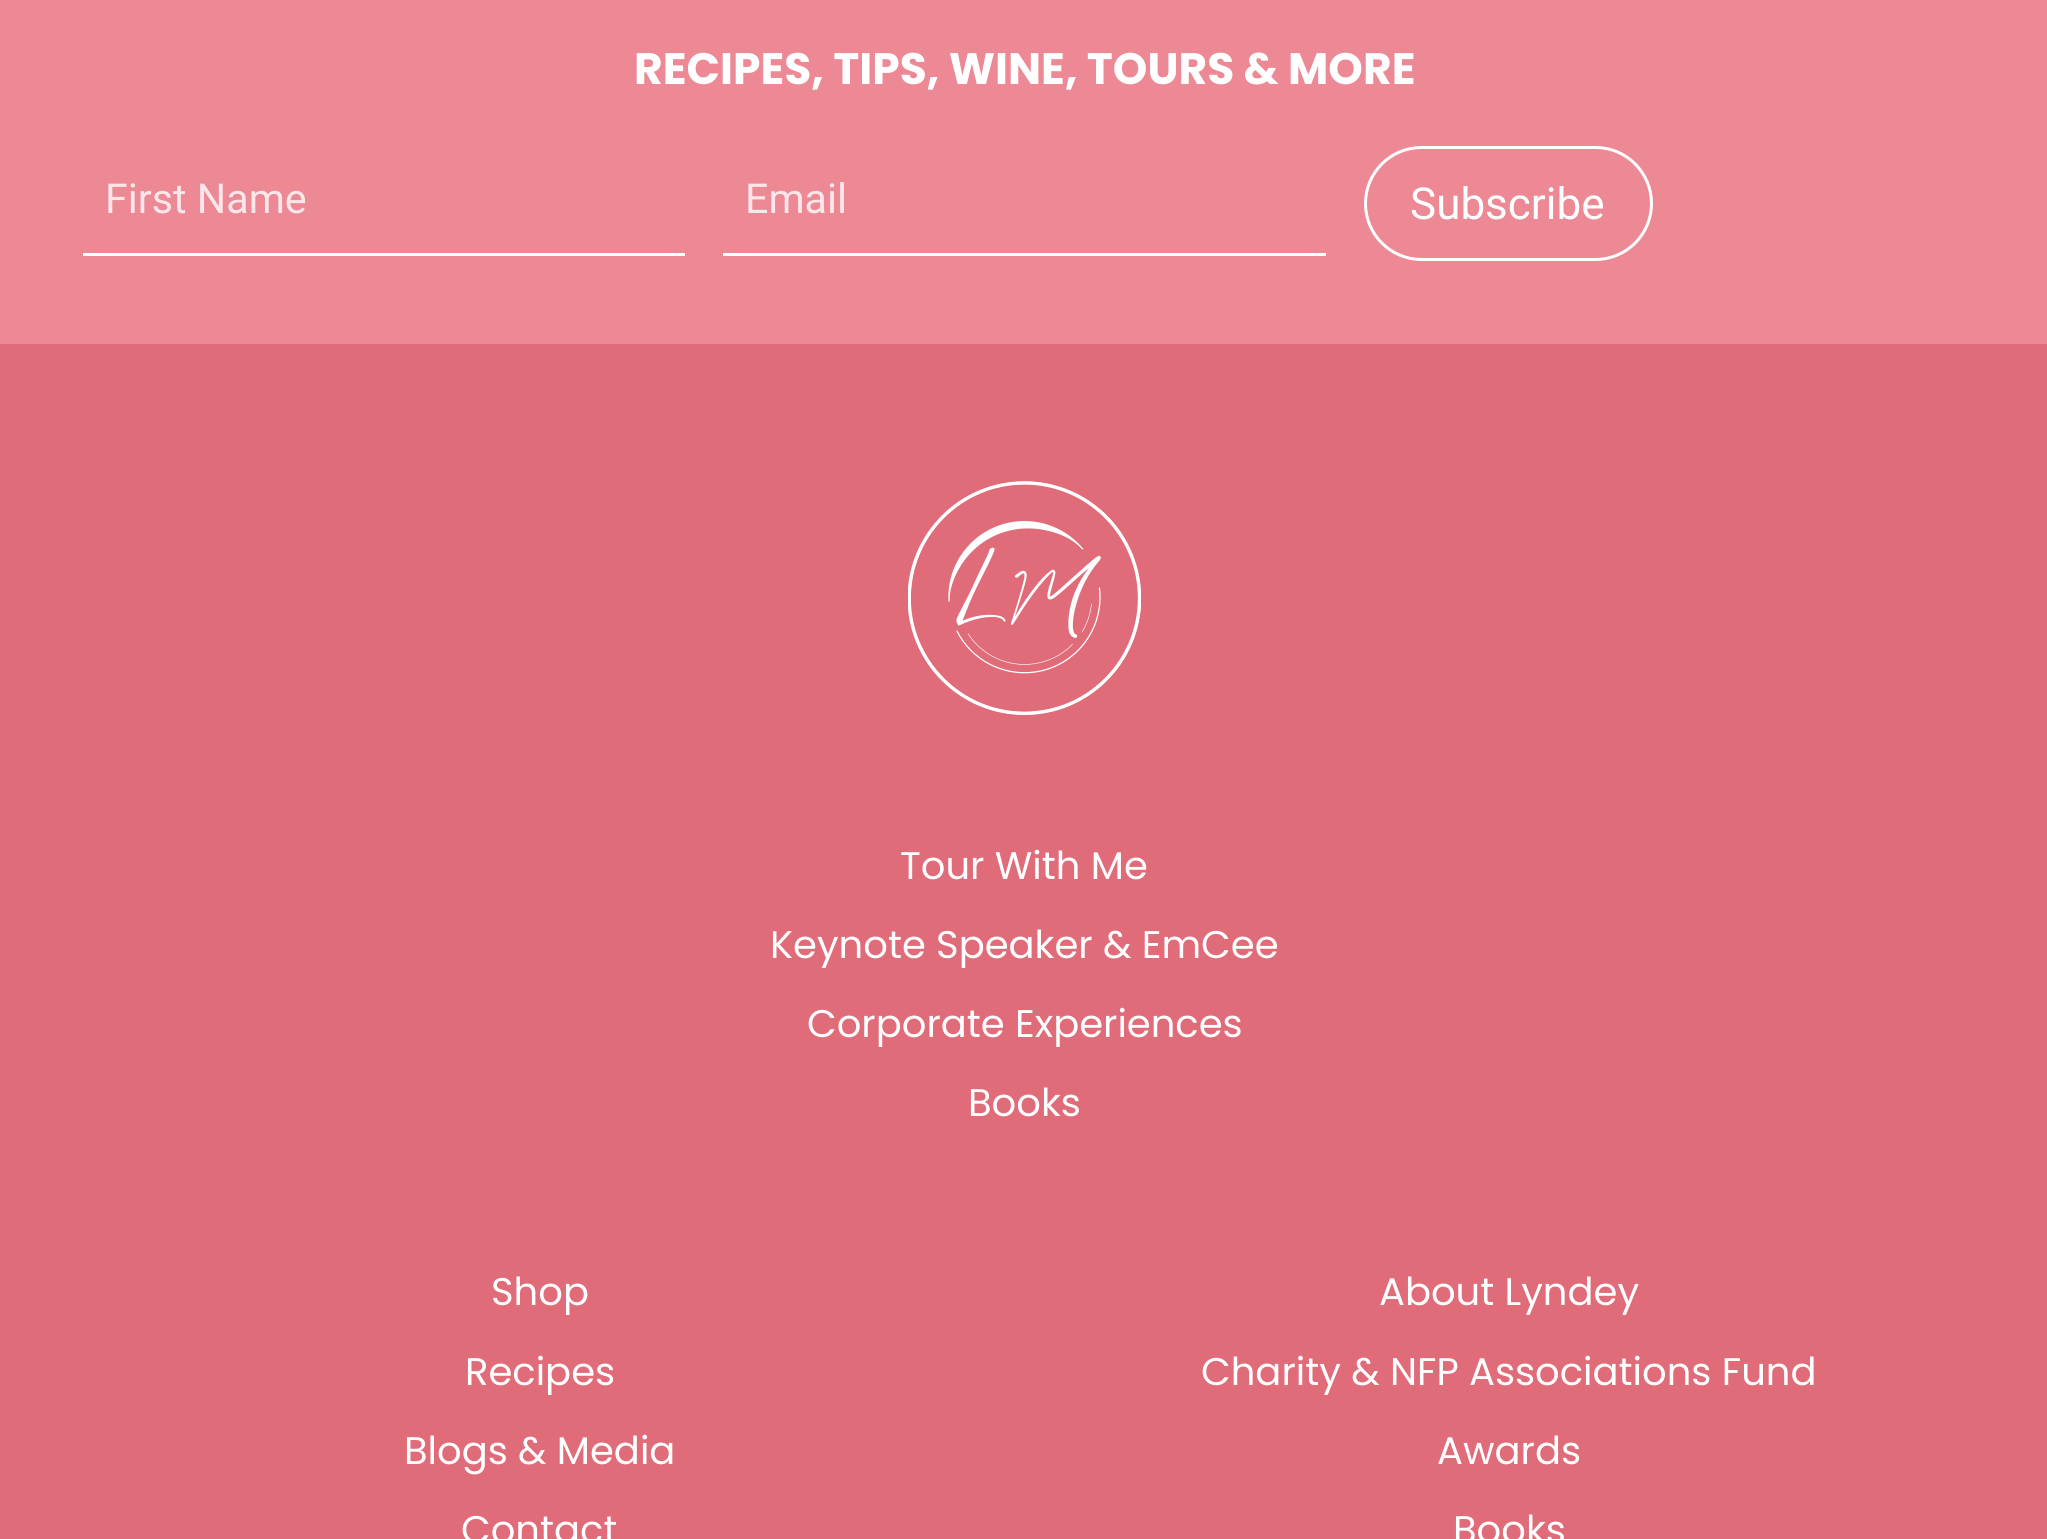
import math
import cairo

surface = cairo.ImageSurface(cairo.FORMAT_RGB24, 2047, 1539)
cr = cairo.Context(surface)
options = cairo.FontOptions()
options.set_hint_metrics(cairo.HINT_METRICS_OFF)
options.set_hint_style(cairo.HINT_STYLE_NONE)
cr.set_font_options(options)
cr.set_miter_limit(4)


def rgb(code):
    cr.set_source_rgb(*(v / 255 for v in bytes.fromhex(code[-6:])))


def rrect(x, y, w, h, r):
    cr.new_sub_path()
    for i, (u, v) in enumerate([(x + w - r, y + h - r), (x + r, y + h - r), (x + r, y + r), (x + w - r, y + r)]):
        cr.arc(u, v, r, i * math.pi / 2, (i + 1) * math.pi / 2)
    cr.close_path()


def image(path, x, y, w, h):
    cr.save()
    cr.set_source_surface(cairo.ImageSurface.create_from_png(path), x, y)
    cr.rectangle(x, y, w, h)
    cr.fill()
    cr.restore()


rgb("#ec8995")
cr.paint()
rgb("#ffffff")
cr.rectangle(83, 253, 602, 3)
cr.fill()
cr.rectangle(723, 253, 603, 3)
cr.fill()
rrect(1365.5, 147.5, 286, 112, 56)
cr.set_line_width(3)
cr.stroke()
rgb("#e06b79")
cr.rectangle(0, 344, 2047, 1195)
cr.fill()
image("img/1.png", 908, 481, 233, 234)
cr.select_font_face("Poppins", cairo.FONT_SLANT_NORMAL, cairo.FONT_WEIGHT_BOLD)
cr.set_font_size(44)
rgb("#ffffff")
cr.move_to(634, 84)
cr.show_text("RECIPES, TIPS, WINE, TOURS & MORE")
cr.select_font_face("Roboto")
cr.set_font_size(41.25)
rgb("#fbe7ea")
cr.move_to(105, 213)
cr.show_text("First Name")
cr.move_to(745, 213)
cr.show_text("Email")
cr.set_font_size(44)
rgb("#ffffff")
cr.move_to(1410, 219)
cr.show_text("Subscribe")
cr.select_font_face("Poppins")
cr.set_font_size(38.5)
for x, y, s in [
    (900, 879, "Tour With Me"),
    (770, 958, "Keynote Speaker & EmCee"),
    (807, 1037, "Corporate Experiences"),
    (968, 1116, "Books"),
    (491, 1305, "Shop"),
    (465, 1385, "Recipes"),
    (404, 1464, "Blogs & Media"),
    (461, 1543, "Contact"),
    (1379, 1305, "About Lyndey"),
    (1201, 1385, "Charity & NFP Associations Fund"),
    (1437, 1464, "Awards"),
    (1453, 1543, "Books"),
]:
    cr.move_to(x, y)
    cr.show_text(s)
surface.write_to_png("page.png")
